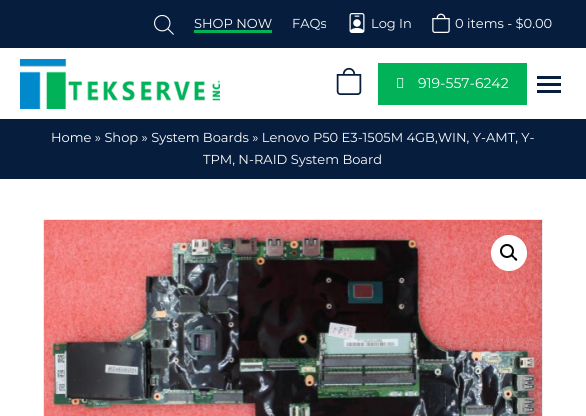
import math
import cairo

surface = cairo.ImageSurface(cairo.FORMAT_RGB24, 586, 416)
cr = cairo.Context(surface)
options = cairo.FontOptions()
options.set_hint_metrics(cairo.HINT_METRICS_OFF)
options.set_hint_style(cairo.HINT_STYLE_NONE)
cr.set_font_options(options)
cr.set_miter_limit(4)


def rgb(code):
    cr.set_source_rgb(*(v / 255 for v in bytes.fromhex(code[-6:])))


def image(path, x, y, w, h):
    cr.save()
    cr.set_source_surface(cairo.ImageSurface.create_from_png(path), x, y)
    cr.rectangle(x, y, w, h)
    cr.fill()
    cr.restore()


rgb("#ffffff")
cr.paint()
rgb("#061d3d")
cr.rectangle(0, 0, 586, 48)
cr.fill()
image("img/1.png", 154, 15, 20, 20)
rgb("#01b258")
cr.rectangle(194, 30, 78, 3)
cr.fill()
image("img/2.png", 349, 13, 16, 20)
image("img/3.png", 432, 13, 18, 20)
image("img/4.png", 20, 59, 200, 50)
image("img/5.png", 336, 67, 26, 28)
cr.rectangle(378, 63, 149, 42)
cr.fill()
image("img/6.png", 397, 78, 7, 10)
for x, y, w, h, color in [
    (537, 76, 24, 3, "#061d3d"),
    (537, 83, 24, 3, "#061d3d"),
    (537, 90, 24, 3, "#061d3d"),
    (0, 119, 586, 60, "#061d3d"),
]:
    rgb(color)
    cr.rectangle(x, y, w, h)
    cr.fill()
cr.rectangle(43.5, 219.5, 499, 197)
rgb("#e9ecef")
cr.set_line_width(1)
cr.stroke()
image("img/7.png", 44, 220, 498, 196)
rgb("#ffffff")
cr.arc(509, 253, 18, 0, 2 * math.pi)
cr.fill()
cr.arc(507, 251, 6, 0, 2 * math.pi)
rgb("#000000")
cr.set_line_width(2)
cr.stroke()
cr.new_path()
cr.move_to(511, 254.5)
cr.curve_to(512.5, 253.5, 514, 256, 514.5, 257)
cr.curve_to(515.5, 257.5, 518, 259, 517, 260.5)
cr.curve_to(515.5, 261.5, 514, 259, 513.5, 258)
cr.curve_to(512.5, 257.5, 510, 256, 511, 254.5)
cr.close_path()
cr.fill()
cr.select_font_face("Montserrat")
cr.set_font_size(13)
rgb("#ffffff")
for x, y, s in [
    (194, 28, "SHOP NOW"),
    (292, 28, "FAQs"),
    (371, 28, "Log In"),
    (455, 28, "0 items - $0.00"),
]:
    cr.move_to(x, y)
    cr.show_text(s)
cr.set_font_size(14)
cr.move_to(418, 88)
cr.show_text("919-557-6242")
cr.set_font_size(13)
cr.move_to(51, 142)
cr.show_text("Home » Shop » System Boards » Lenovo P50 E3-1505M 4GB,WIN, Y-AMT, Y-")
cr.move_to(203, 164)
cr.show_text("TPM, N-RAID System Board")
surface.write_to_png("page.png")
